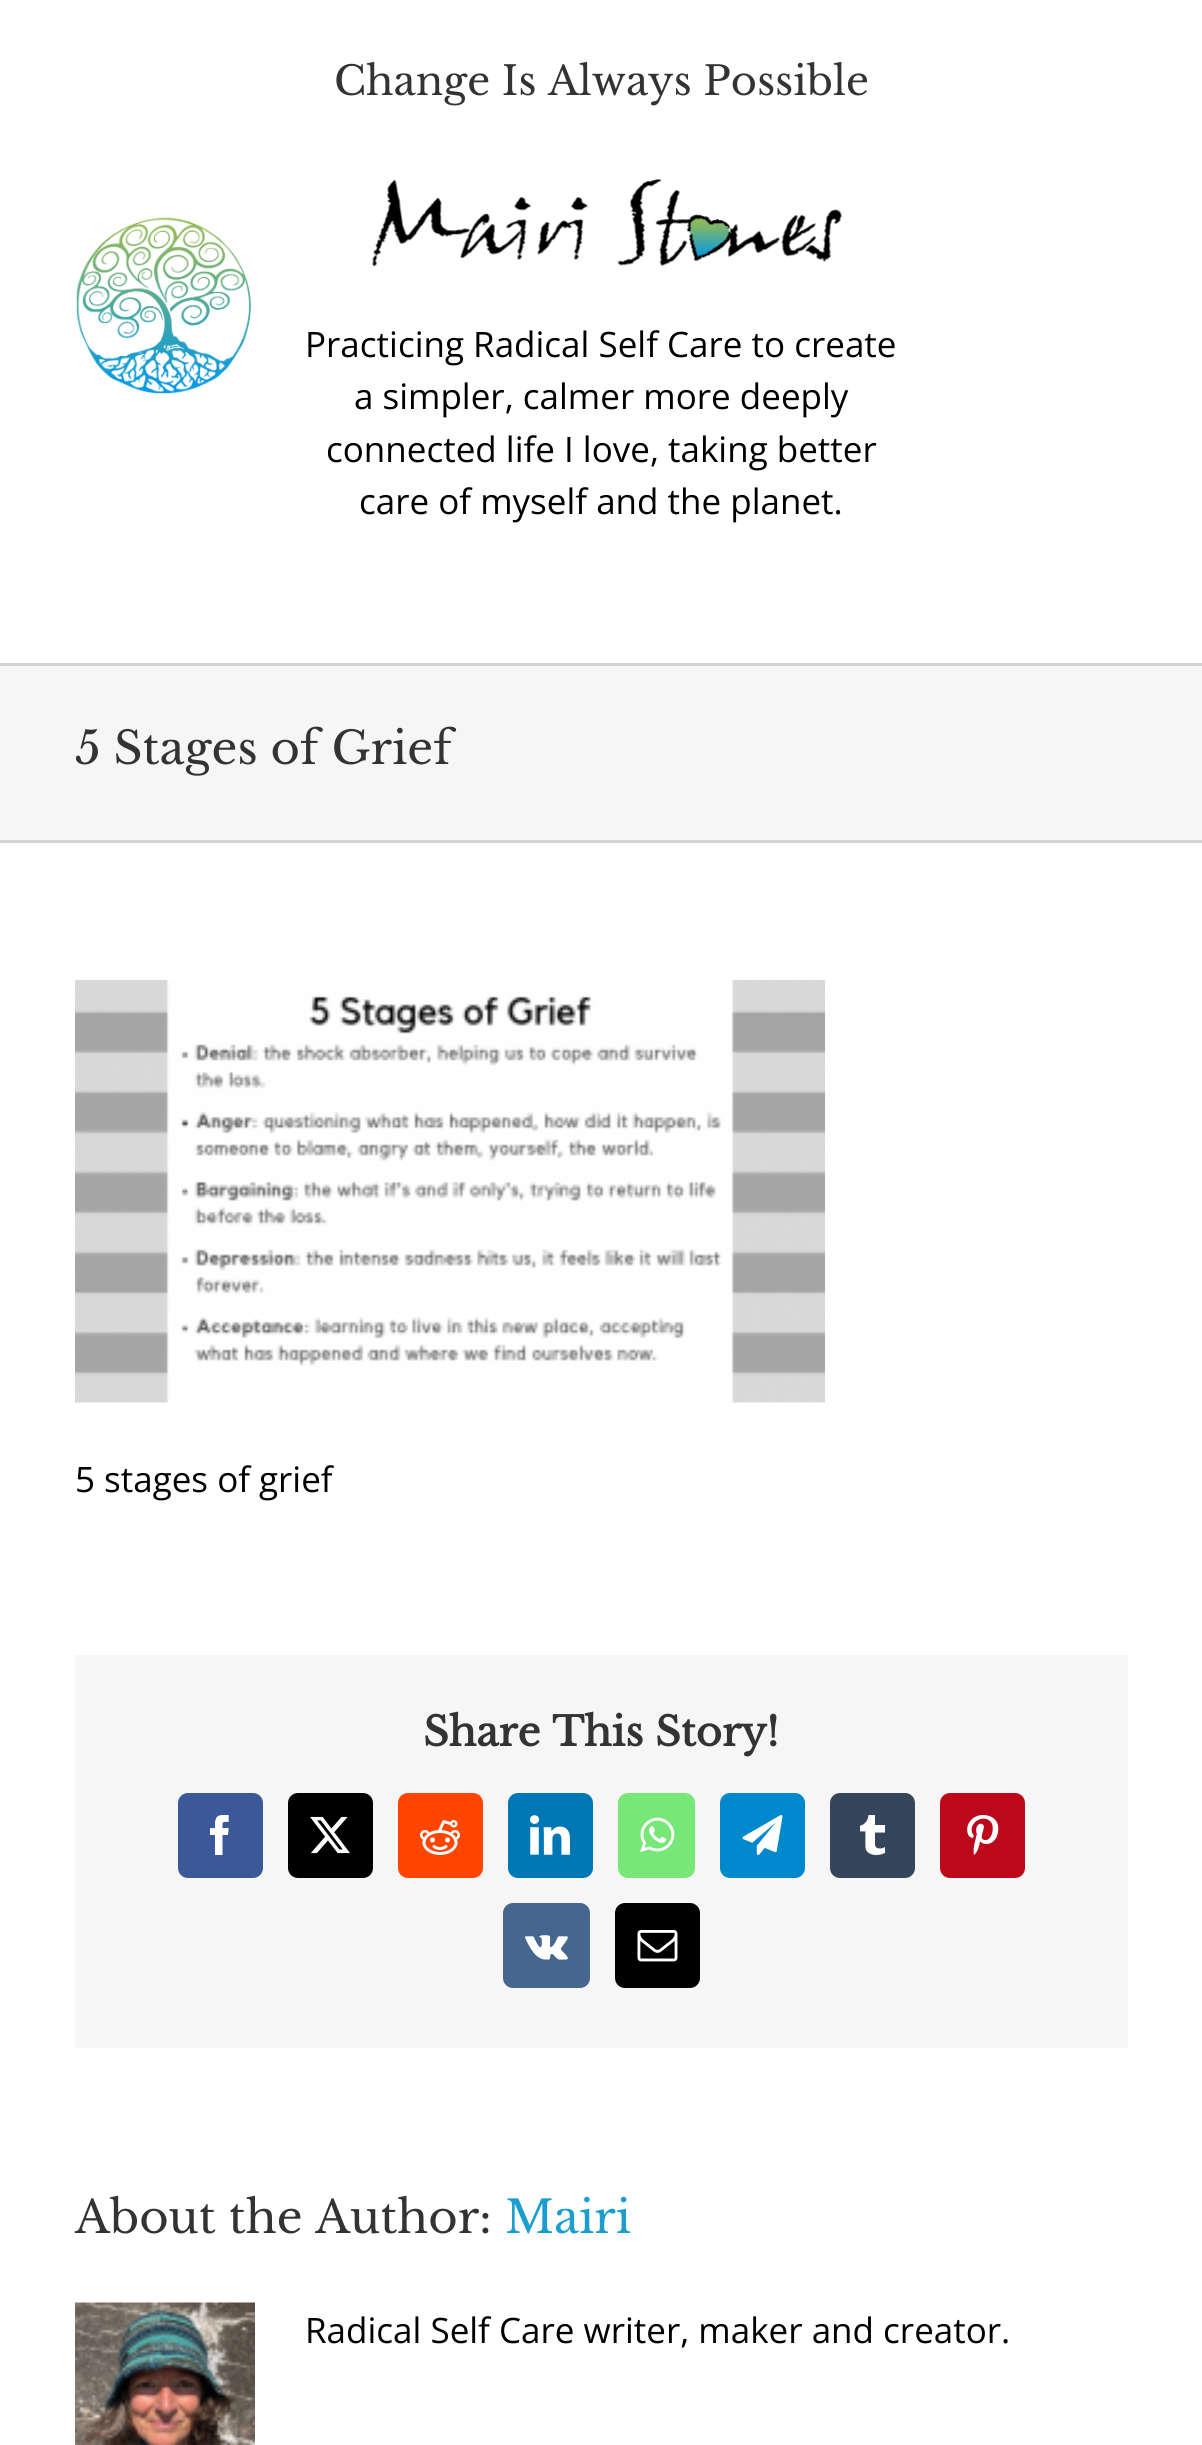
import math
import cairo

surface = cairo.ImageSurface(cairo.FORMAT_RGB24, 1202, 2445)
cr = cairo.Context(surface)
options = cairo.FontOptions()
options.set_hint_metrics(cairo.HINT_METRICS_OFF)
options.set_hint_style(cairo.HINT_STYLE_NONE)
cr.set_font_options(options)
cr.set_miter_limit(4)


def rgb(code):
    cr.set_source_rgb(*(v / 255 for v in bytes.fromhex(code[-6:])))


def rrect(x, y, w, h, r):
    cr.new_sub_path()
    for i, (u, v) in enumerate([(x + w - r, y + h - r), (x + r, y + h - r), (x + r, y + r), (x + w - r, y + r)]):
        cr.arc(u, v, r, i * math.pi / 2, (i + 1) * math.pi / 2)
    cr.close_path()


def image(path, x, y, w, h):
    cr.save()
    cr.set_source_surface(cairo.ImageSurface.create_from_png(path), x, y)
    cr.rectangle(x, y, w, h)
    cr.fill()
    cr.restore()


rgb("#ffffff")
cr.paint()
image("img/1.png", 76, 217, 176, 177)
image("img/2.png", 372, 179, 470, 88)
for x, y, w, h, color in [
    (0, 666, 1202, 174, "#f6f6f6"),
    (0, 663, 1202, 3, "#d2d3d4"),
    (0, 840, 1202, 3, "#d2d3d4"),
]:
    rgb(color)
    cr.rectangle(x, y, w, h)
    cr.fill()
image("img/3.png", 75, 980, 750, 423)
rgb("#f6f6f6")
cr.rectangle(75, 1655, 1053, 393)
cr.fill()
rgb("#3b5998")
rrect(179.5, 1794.5, 82, 82, 8.5)
cr.fill_preserve()
cr.set_line_width(3)
cr.stroke()
image("img/4.png", 210, 1815, 19, 40)
rgb("#000000")
rrect(289.5, 1794.5, 82, 82, 8.5)
cr.fill_preserve()
cr.stroke()
image("img/5.png", 310, 1816, 40, 38)
rgb("#ff4500")
rrect(399.5, 1794.5, 82, 82, 8.5)
cr.fill_preserve()
cr.stroke()
image("img/6.png", 420, 1820, 40, 35)
rgb("#0077b5")
rrect(509.5, 1794.5, 82, 82, 8.5)
cr.fill_preserve()
cr.stroke()
image("img/7.png", 530, 1815, 40, 40)
rgb("#77e878")
rrect(619.5, 1794.5, 74, 82, 8.5)
cr.fill_preserve()
cr.stroke()
image("img/8.png", 640, 1817, 35, 36)
rgb("#0088cc")
rrect(721.5, 1794.5, 82, 82, 8.5)
cr.fill_preserve()
cr.stroke()
image("img/9.png", 742, 1815, 41, 40)
rgb("#35465c")
rrect(831.5, 1794.5, 82, 82, 8.5)
cr.fill_preserve()
cr.stroke()
image("img/10.png", 860, 1815, 25, 40)
rgb("#bd081c")
rrect(941.5, 1794.5, 82, 82, 8.5)
cr.fill_preserve()
cr.stroke()
image("img/11.png", 967, 1815, 32, 40)
rgb("#45668e")
rrect(504.5, 1904.5, 84, 82, 8.5)
cr.fill_preserve()
cr.stroke()
image("img/12.png", 525, 1935, 43, 25)
rgb("#000000")
rrect(616.5, 1904.5, 82, 82, 8.5)
cr.fill_preserve()
cr.stroke()
image("img/13.png", 637, 1930, 41, 32)
image("img/14.png", 75, 2302, 180, 143)
cr.select_font_face("Libre Baskerville")
cr.set_font_size(40)
rgb("#333333")
cr.move_to(334, 95)
cr.show_text("Change Is Always Possible")
cr.select_font_face("Open Sans")
cr.set_font_size(35)
rgb("#000000")
for x, y, s in [
    (305, 357, "Practicing Radical Self Care to create"),
    (354, 409, "a simpler, calmer more deeply"),
    (326, 462, "connected life I love, taking better"),
    (359, 514, "care of myself and the planet."),
]:
    cr.move_to(x, y)
    cr.show_text(s)
cr.select_font_face("Libre Baskerville")
cr.set_font_size(45)
rgb("#333333")
cr.move_to(75, 764)
cr.show_text("5 Stages of Grief")
cr.select_font_face("Open Sans")
cr.set_font_size(35)
rgb("#000000")
cr.move_to(75, 1492)
cr.show_text("5 stages of grief")
cr.select_font_face("Libre Baskerville", cairo.FONT_SLANT_NORMAL, cairo.FONT_WEIGHT_BOLD)
cr.set_font_size(40)
rgb("#333333")
cr.move_to(423, 1746)
cr.show_text("Share This Story!")
cr.select_font_face("Libre Baskerville")
cr.set_font_size(45)
cr.move_to(75, 2233)
cr.show_text("About the Author:")
rgb("#1b9ecf")
cr.move_to(505, 2233)
cr.show_text("Mairi")
cr.select_font_face("Open Sans")
cr.set_font_size(35)
rgb("#000000")
cr.move_to(305, 2343)
cr.show_text("Radical Self Care writer, maker and creator.")
surface.write_to_png("page.png")
